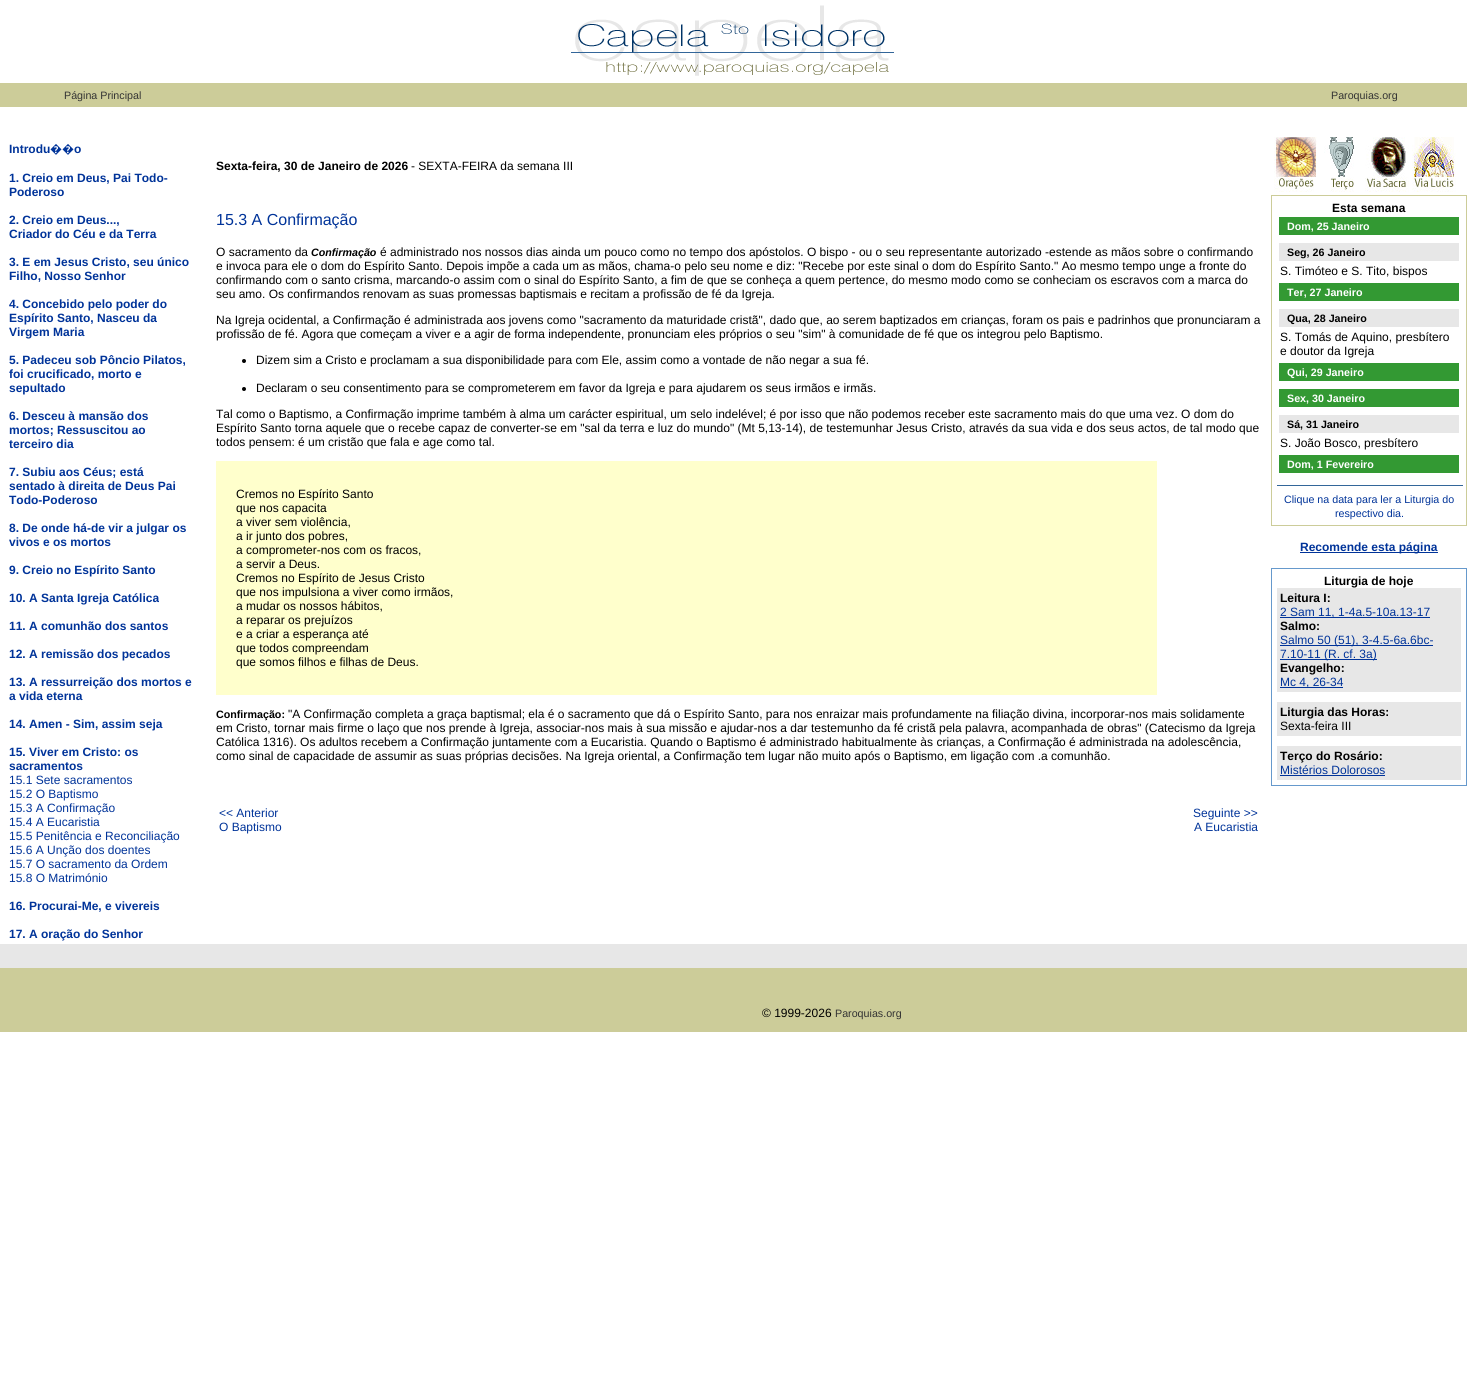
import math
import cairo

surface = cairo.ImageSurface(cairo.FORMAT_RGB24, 1467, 1380)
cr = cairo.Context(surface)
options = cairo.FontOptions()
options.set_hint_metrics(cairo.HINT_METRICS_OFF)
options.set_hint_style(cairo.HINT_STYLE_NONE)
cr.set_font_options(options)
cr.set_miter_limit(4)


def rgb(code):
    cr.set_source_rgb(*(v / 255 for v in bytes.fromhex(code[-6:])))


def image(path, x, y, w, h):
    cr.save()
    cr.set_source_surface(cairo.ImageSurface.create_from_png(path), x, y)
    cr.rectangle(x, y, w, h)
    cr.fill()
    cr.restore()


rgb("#ffffff")
cr.paint()
image("img/1.png", 571, 5, 323, 71)
rgb("#cccc99")
cr.rectangle(0, 83, 1467, 24)
cr.fill()
image("img/2.png", 1274, 137, 43, 55)
image("img/3.png", 1324, 137, 30, 55)
image("img/4.png", 1365, 137, 44, 55)
image("img/5.png", 1412, 137, 44, 55)
rgb("#000000")
cr.arc(244, 361, 2, 0, 2 * math.pi)
cr.fill()
cr.arc(244, 389, 2, 0, 2 * math.pi)
cr.fill()
for x, y, w, h, color in [
    (216, 461, 941, 234, "#ffffcc"),
    (1271, 195, 196, 331, "#cccc99"),
    (1272, 196, 194, 329, "#ffffff"),
    (1279, 217, 180, 18, "#339933"),
    (1279, 243, 180, 18, "#e7e7e7"),
    (1279, 283, 180, 18, "#339933"),
    (1279, 309, 180, 18, "#e7e7e7"),
    (1279, 363, 180, 18, "#339933"),
    (1279, 389, 180, 18, "#339933"),
    (1279, 415, 180, 18, "#e7e7e7"),
    (1279, 455, 180, 18, "#339933"),
    (1277, 485, 186, 1, "#336699"),
    (1300, 552, 138, 1, "#003399"),
    (1271, 568, 196, 218, "#6699cc"),
    (1272, 569, 194, 216, "#ffffff"),
    (1277, 588, 184, 104, "#e7e7e7"),
    (1280, 617, 150, 1, "#003399"),
    (1280, 645, 153, 1, "#003399"),
    (1280, 659, 97, 1, "#003399"),
    (1280, 687, 63, 1, "#003399"),
    (1277, 702, 184, 34, "#e7e7e7"),
    (1277, 746, 184, 34, "#e7e7e7"),
    (1280, 775, 105, 1, "#003399"),
    (0, 944, 1467, 24, "#e7e7e7"),
    (0, 968, 1467, 64, "#cccc99"),
]:
    rgb(color)
    cr.rectangle(x, y, w, h)
    cr.fill()
cr.select_font_face("Liberation Sans")
cr.set_font_size(10.7)
rgb("#333333")
cr.move_to(64, 99)
cr.show_text("Página Principal")
cr.move_to(1331, 99)
cr.show_text("Paroquias.org")
cr.select_font_face("Liberation Sans", cairo.FONT_SLANT_NORMAL, cairo.FONT_WEIGHT_BOLD)
cr.set_font_size(12)
rgb("#003399")
cr.move_to(9, 153)
cr.show_text("Introdu")
cr.select_font_face("Noto Sans", cairo.FONT_SLANT_NORMAL, cairo.FONT_WEIGHT_BOLD)
cr.move_to(50, 153)
cr.show_text("��")
cr.select_font_face("Liberation Sans", cairo.FONT_SLANT_NORMAL, cairo.FONT_WEIGHT_BOLD)
for x, y, s in [
    (74, 153, "o"),
    (9, 182, "1. Creio em Deus, Pai Todo-"),
    (9, 196, "Poderoso"),
    (9, 224, "2. Creio em Deus...,"),
    (9, 238, "Criador do Céu e da Terra"),
    (9, 266, "3. E em Jesus Cristo, seu único"),
    (9, 280, "Filho, Nosso Senhor"),
    (9, 308, "4. Concebido pelo poder do"),
    (9, 322, "Espírito Santo, Nasceu da"),
    (9, 336, "Virgem Maria"),
    (9, 364, "5. Padeceu sob Pôncio Pilatos,"),
    (9, 378, "foi crucificado, morto e"),
    (9, 392, "sepultado"),
    (9, 420, "6. Desceu à mansão dos"),
    (9, 434, "mortos; Ressuscitou ao"),
    (9, 448, "terceiro dia"),
    (9, 476, "7. Subiu aos Céus; está"),
    (9, 490, "sentado à direita de Deus Pai"),
    (9, 504, "Todo-Poderoso"),
    (9, 532, "8. De onde há-de vir a julgar os"),
    (9, 546, "vivos e os mortos"),
    (9, 574, "9. Creio no Espírito Santo"),
    (9, 602, "10. A Santa Igreja Católica"),
    (9, 630, "11. A comunhão dos santos"),
    (9, 658, "12. A remissão dos pecados"),
    (9, 686, "13. A ressurreição dos mortos e"),
    (9, 700, "a vida eterna"),
    (9, 728, "14. Amen - Sim, assim seja"),
    (9, 756, "15. Viver em Cristo: os"),
    (9, 770, "sacramentos"),
]:
    cr.move_to(x, y)
    cr.show_text(s)
cr.select_font_face("Liberation Sans")
for x, y, s in [
    (9, 784, "15.1 Sete sacramentos"),
    (9, 798, "15.2 O Baptismo"),
    (9, 812, "15.3 A Confirmação"),
    (9, 826, "15.4 A Eucaristia"),
    (9, 840, "15.5 Penitência e Reconciliação"),
    (9, 854, "15.6 A Unção dos doentes"),
    (9, 868, "15.7 O sacramento da Ordem"),
    (9, 882, "15.8 O Matrimónio"),
]:
    cr.move_to(x, y)
    cr.show_text(s)
cr.select_font_face("Liberation Sans", cairo.FONT_SLANT_NORMAL, cairo.FONT_WEIGHT_BOLD)
cr.move_to(9, 910)
cr.show_text("16. Procurai-Me, e vivereis")
cr.move_to(9, 938)
cr.show_text("17. A oração do Senhor")
rgb("#000000")
cr.move_to(216, 170)
cr.show_text("Sexta-feira, 30 de Janeiro de 2026")
cr.select_font_face("Liberation Sans")
cr.move_to(411, 170)
cr.show_text("- SEXTA-FEIRA da semana III")
cr.set_font_size(16)
rgb("#003399")
cr.move_to(216, 225)
cr.show_text("15.3 A Confirmação")
cr.set_font_size(12)
rgb("#000000")
cr.move_to(216, 256)
cr.show_text("O sacramento da")
cr.select_font_face("Liberation Sans", cairo.FONT_SLANT_ITALIC, cairo.FONT_WEIGHT_BOLD)
cr.set_font_size(10.7)
cr.move_to(311, 256)
cr.show_text("Confirmação")
cr.select_font_face("Liberation Sans")
cr.set_font_size(12)
for x, y, s in [
    (380, 256, "é administrado nos nossos dias ainda um pouco como no tempo dos apóstolos. O bispo - ou o seu representante autorizado -estende as mãos sobre o confirmando"),
    (216, 270, "e invoca para ele o dom do Espírito Santo. Depois impõe a cada um as mãos, chama-o pelo seu nome e diz: \"Recebe por este sinal o dom do Espírito Santo.\" Ao mesmo tempo unge a fronte do"),
    (216, 284, "confirmando com o santo crisma, marcando-o assim com o sinal do Espírito Santo, a fim de que se conheça a quem pertence, do mesmo modo como se conheciam os escravos com a marca do"),
    (216, 298, "seu amo. Os confirmandos renovam as suas promessas baptismais e recitam a profissão de fé da Igreja."),
    (216, 324, "Na Igreja ocidental, a Confirmação é administrada aos jovens como \"sacramento da maturidade cristã\", dado que, ao serem baptizados em crianças, foram os pais e padrinhos que pronunciaram a"),
    (216, 338, "profissão de fé. Agora que começam a viver e a agir de forma independente, pronunciam eles próprios o seu \"sim\" à comunidade de fé que os integrou pelo Baptismo."),
    (256, 364, "Dizem sim a Cristo e proclamam a sua disponibilidade para com Ele, assim como a vontade de não negar a sua fé."),
    (256, 392, "Declaram o seu consentimento para se comprometerem em favor da Igreja e para ajudarem os seus irmãos e irmãs."),
    (216, 418, "Tal como o Baptismo, a Confirmação imprime também à alma um carácter espiritual, um selo indelével; é por isso que não podemos receber este sacramento mais do que uma vez. O dom do"),
    (216, 432, "Espírito Santo torna aquele que o recebe capaz de converter-se em \"sal da terra e luz do mundo\" (Mt 5,13-14), de testemunhar Jesus Cristo, através da sua vida e dos seus actos, de tal modo que"),
    (216, 446, "todos pensem: é um cristão que fala e age como tal."),
    (236, 498, "Cremos no Espírito Santo"),
    (236, 512, "que nos capacita"),
    (236, 526, "a viver sem violência,"),
    (236, 540, "a ir junto dos pobres,"),
    (236, 554, "a comprometer-nos com os fracos,"),
    (236, 568, "a servir a Deus."),
    (236, 582, "Cremos no Espírito de Jesus Cristo"),
    (236, 596, "que nos impulsiona a viver como irmãos,"),
    (236, 610, "a mudar os nossos hábitos,"),
    (236, 624, "a reparar os prejuízos"),
    (236, 638, "e a criar a esperança até"),
    (236, 652, "que todos compreendam"),
    (236, 666, "que somos filhos e filhas de Deus."),
]:
    cr.move_to(x, y)
    cr.show_text(s)
cr.select_font_face("Liberation Sans", cairo.FONT_SLANT_NORMAL, cairo.FONT_WEIGHT_BOLD)
cr.set_font_size(10.7)
cr.move_to(216, 718)
cr.show_text("Confirmação:")
cr.select_font_face("Liberation Sans")
cr.set_font_size(12)
for x, y, s in [
    (288, 718, "\"A Confirmação completa a graça baptismal; ela é o sacramento que dá o Espírito Santo, para nos enraizar mais profundamente na filiação divina, incorporar-nos mais solidamente"),
    (216, 732, "em Cristo, tornar mais firme o laço que nos prende à Igreja, associar-nos mais à sua missão e ajudar-nos a dar testemunho da fé cristã pela palavra, acompanhada de obras\" (Catecismo da Igreja"),
    (216, 746, "Católica 1316). Os adultos recebem a Confirmação juntamente com a Eucaristia. Quando o Baptismo é administrado habitualmente às crianças, a Confirmação é administrada na adolescência,"),
    (216, 760, "como sinal de capacidade de assumir as suas próprias decisões. Na Igreja oriental, a Confirmação tem lugar não muito após o Baptismo, em ligação com .a comunhão."),
]:
    cr.move_to(x, y)
    cr.show_text(s)
rgb("#003399")
for x, y, s in [
    (219, 817, "<< Anterior"),
    (219, 831, "O Baptismo"),
    (1193, 817, "Seguinte >>"),
    (1194, 831, "A Eucaristia"),
]:
    cr.move_to(x, y)
    cr.show_text(s)
cr.select_font_face("Liberation Sans", cairo.FONT_SLANT_NORMAL, cairo.FONT_WEIGHT_BOLD)
rgb("#000000")
cr.move_to(1332, 212)
cr.show_text("Esta semana")
cr.set_font_size(10.7)
rgb("#ffffff")
cr.move_to(1287, 230)
cr.show_text("Dom, 25 Janeiro")
rgb("#000000")
cr.move_to(1287, 256)
cr.show_text("Seg, 26 Janeiro")
cr.select_font_face("Liberation Sans")
cr.set_font_size(12)
cr.move_to(1280, 275)
cr.show_text("S. Timóteo e S. Tito, bispos")
cr.select_font_face("Liberation Sans", cairo.FONT_SLANT_NORMAL, cairo.FONT_WEIGHT_BOLD)
cr.set_font_size(10.7)
rgb("#ffffff")
cr.move_to(1287, 296)
cr.show_text("Ter, 27 Janeiro")
rgb("#000000")
cr.move_to(1287, 322)
cr.show_text("Qua, 28 Janeiro")
cr.select_font_face("Liberation Sans")
cr.set_font_size(12)
cr.move_to(1280, 341)
cr.show_text("S. Tomás de Aquino, presbítero")
cr.move_to(1280, 355)
cr.show_text("e doutor da Igreja")
cr.select_font_face("Liberation Sans", cairo.FONT_SLANT_NORMAL, cairo.FONT_WEIGHT_BOLD)
cr.set_font_size(10.7)
rgb("#ffffff")
cr.move_to(1287, 376)
cr.show_text("Qui, 29 Janeiro")
cr.move_to(1287, 402)
cr.show_text("Sex, 30 Janeiro")
rgb("#000000")
cr.move_to(1287, 428)
cr.show_text("Sá, 31 Janeiro")
cr.select_font_face("Liberation Sans")
cr.set_font_size(12)
cr.move_to(1280, 447)
cr.show_text("S. João Bosco, presbítero")
cr.select_font_face("Liberation Sans", cairo.FONT_SLANT_NORMAL, cairo.FONT_WEIGHT_BOLD)
cr.set_font_size(10.7)
rgb("#ffffff")
cr.move_to(1287, 468)
cr.show_text("Dom, 1 Fevereiro")
cr.select_font_face("Liberation Sans")
rgb("#003399")
cr.move_to(1284, 503)
cr.show_text("Clique na data para ler a Liturgia do")
cr.move_to(1335, 517)
cr.show_text("respectivo dia.")
cr.select_font_face("Liberation Sans", cairo.FONT_SLANT_NORMAL, cairo.FONT_WEIGHT_BOLD)
cr.set_font_size(12)
cr.move_to(1300, 551)
cr.show_text("Recomende esta página")
rgb("#000000")
cr.move_to(1324, 585)
cr.show_text("Liturgia de hoje")
cr.move_to(1280, 602)
cr.show_text("Leitura I:")
cr.select_font_face("Liberation Sans")
rgb("#003399")
cr.move_to(1280, 616)
cr.show_text("2 Sam 11, 1-4a.5-10a.13-17")
cr.select_font_face("Liberation Sans", cairo.FONT_SLANT_NORMAL, cairo.FONT_WEIGHT_BOLD)
rgb("#000000")
cr.move_to(1280, 630)
cr.show_text("Salmo:")
cr.select_font_face("Liberation Sans")
rgb("#003399")
cr.move_to(1280, 644)
cr.show_text("Salmo 50 (51), 3-4.5-6a.6bc-")
cr.move_to(1280, 658)
cr.show_text("7.10-11 (R. cf. 3a)")
cr.select_font_face("Liberation Sans", cairo.FONT_SLANT_NORMAL, cairo.FONT_WEIGHT_BOLD)
rgb("#000000")
cr.move_to(1280, 672)
cr.show_text("Evangelho:")
cr.select_font_face("Liberation Sans")
rgb("#003399")
cr.move_to(1280, 686)
cr.show_text("Mc 4, 26-34")
cr.select_font_face("Liberation Sans", cairo.FONT_SLANT_NORMAL, cairo.FONT_WEIGHT_BOLD)
rgb("#000000")
cr.move_to(1280, 716)
cr.show_text("Liturgia das Horas:")
cr.select_font_face("Liberation Sans")
cr.move_to(1280, 730)
cr.show_text("Sexta-feira III")
cr.select_font_face("Liberation Sans", cairo.FONT_SLANT_NORMAL, cairo.FONT_WEIGHT_BOLD)
cr.move_to(1280, 760)
cr.show_text("Terço do Rosário:")
cr.select_font_face("Liberation Sans")
rgb("#003399")
cr.move_to(1280, 774)
cr.show_text("Mistérios Dolorosos")
rgb("#000000")
cr.move_to(762, 1017)
cr.show_text("© 1999-2026")
cr.set_font_size(10.7)
rgb("#333333")
cr.move_to(835, 1017)
cr.show_text("Paroquias.org")
surface.write_to_png("page.png")
